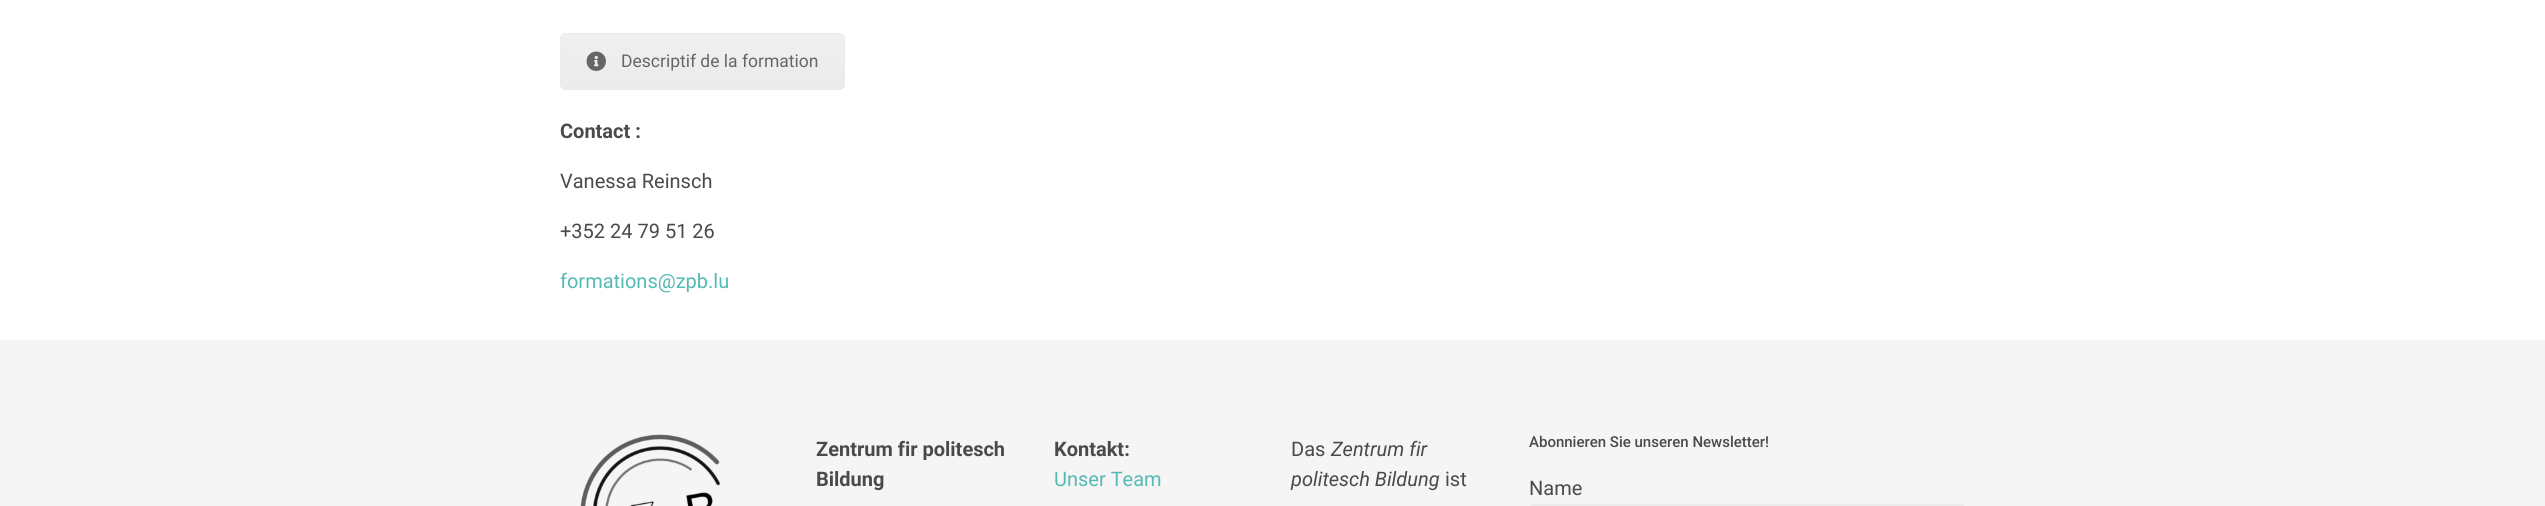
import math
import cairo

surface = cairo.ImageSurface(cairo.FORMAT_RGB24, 2545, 506)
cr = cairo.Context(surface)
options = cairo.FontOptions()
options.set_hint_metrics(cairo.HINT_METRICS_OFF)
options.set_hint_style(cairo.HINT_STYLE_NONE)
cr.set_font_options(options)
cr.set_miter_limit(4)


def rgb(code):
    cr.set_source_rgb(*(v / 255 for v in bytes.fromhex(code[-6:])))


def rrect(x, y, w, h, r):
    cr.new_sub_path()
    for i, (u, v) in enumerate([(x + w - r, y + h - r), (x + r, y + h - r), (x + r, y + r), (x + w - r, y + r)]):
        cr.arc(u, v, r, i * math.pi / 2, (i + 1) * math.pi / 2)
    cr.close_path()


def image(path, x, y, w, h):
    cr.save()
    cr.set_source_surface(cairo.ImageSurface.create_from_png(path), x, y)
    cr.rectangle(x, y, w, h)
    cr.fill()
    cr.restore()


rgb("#ffffff")
cr.paint()
rgb("#ebebeb")
rrect(560, 33, 285, 57, 6)
cr.fill()
cr.save()
rrect(560, 33, 285, 57, 6)
cr.clip()
gradient = cairo.LinearGradient(703, 34, 703, 89)
gradient.add_color_stop_rgba(0, 1, 1, 1, 0.2)
gradient.add_color_stop_rgba(1, 1, 1, 1, 0.01)
cr.set_source(gradient)
cr.rectangle(560, 34, 285, 52)
cr.fill()
cr.restore()
rrect(560.5, 33.5, 284, 56, 5.5)
cr.set_line_width(1)
cr.stroke()
image("img/1.png", 586, 51, 20, 20)
rgb("#f5f5f5")
cr.rectangle(0, 340, 2545, 166)
cr.fill()
image("img/2.png", 580, 434, 140, 72)
rrect(1530.5, 505.5, 434, 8, 4.5)
rgb("#ebebeb")
cr.set_line_width(3)
cr.stroke()
cr.select_font_face("Roboto")
cr.set_font_size(17.5)
rgb("#666666")
cr.move_to(621, 67)
cr.show_text("Descriptif de la formation")
cr.select_font_face("Roboto", cairo.FONT_SLANT_NORMAL, cairo.FONT_WEIGHT_BOLD)
cr.set_font_size(20)
rgb("#4a4a4a")
cr.move_to(560, 138)
cr.show_text("Contact :")
cr.select_font_face("Roboto")
cr.move_to(560, 188)
cr.show_text("Vanessa Reinsch")
cr.move_to(560, 238)
cr.show_text("+352 24 79 51 26")
rgb("#53bab5")
cr.move_to(560, 288)
cr.show_text("formations@zpb.lu")
cr.select_font_face("Roboto", cairo.FONT_SLANT_NORMAL, cairo.FONT_WEIGHT_BOLD)
rgb("#4a4a4a")
for x, y, s in [
    (816, 456, "Zentrum fir politesch"),
    (816, 486, "Bildung"),
    (1054, 456, "Kontakt:"),
]:
    cr.move_to(x, y)
    cr.show_text(s)
cr.select_font_face("Roboto")
rgb("#53bab5")
cr.move_to(1054, 486)
cr.show_text("Unser Team")
rgb("#4a4a4a")
cr.move_to(1291, 456)
cr.show_text("Das")
cr.select_font_face("Roboto", cairo.FONT_SLANT_ITALIC)
cr.move_to(1331, 456)
cr.show_text("Zentrum fir")
cr.move_to(1291, 486)
cr.show_text("politesch Bildung")
cr.select_font_face("Roboto")
cr.move_to(1445, 486)
cr.show_text("ist")
cr.select_font_face("Roboto Medium")
cr.set_font_size(15)
cr.move_to(1529, 447)
cr.show_text("Abonnieren Sie unseren Newsletter!")
cr.select_font_face("Roboto")
cr.set_font_size(20)
cr.move_to(1529, 495)
cr.show_text("Name")
surface.write_to_png("page.png")
